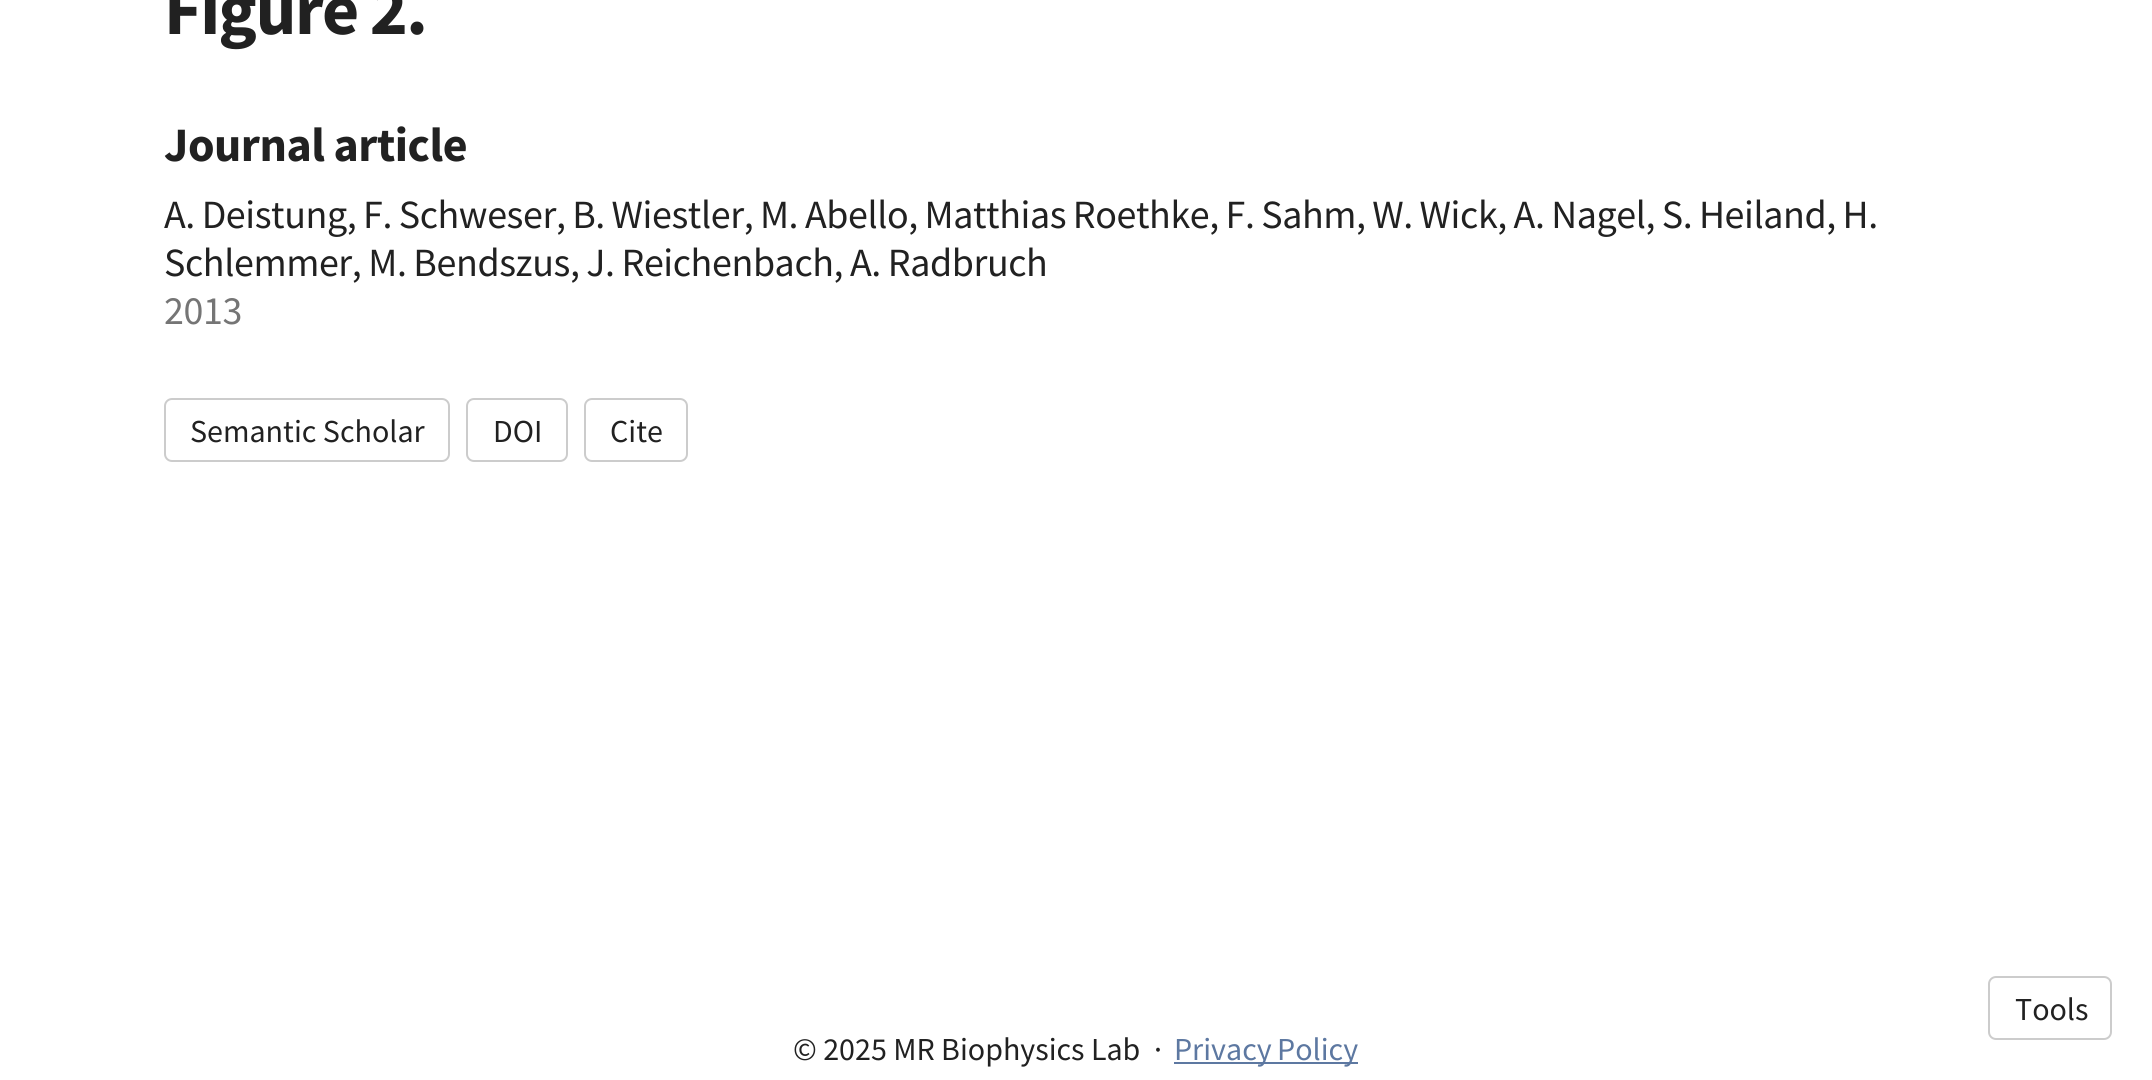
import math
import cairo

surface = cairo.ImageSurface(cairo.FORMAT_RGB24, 2152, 1080)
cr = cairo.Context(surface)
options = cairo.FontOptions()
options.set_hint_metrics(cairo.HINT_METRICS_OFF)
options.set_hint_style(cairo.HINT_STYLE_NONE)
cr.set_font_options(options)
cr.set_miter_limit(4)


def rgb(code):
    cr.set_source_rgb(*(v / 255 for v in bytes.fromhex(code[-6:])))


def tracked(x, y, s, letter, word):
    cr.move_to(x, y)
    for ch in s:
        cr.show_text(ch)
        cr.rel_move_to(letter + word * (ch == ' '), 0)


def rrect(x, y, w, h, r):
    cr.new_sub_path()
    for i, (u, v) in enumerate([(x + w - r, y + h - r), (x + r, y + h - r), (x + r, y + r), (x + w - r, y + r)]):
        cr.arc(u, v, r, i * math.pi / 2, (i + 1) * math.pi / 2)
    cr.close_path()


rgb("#ffffff")
cr.paint()
rrect(165, 399, 284, 62, 7)
rgb("#cccccc")
cr.stroke()
rrect(467, 399, 100, 62, 7)
cr.stroke()
rrect(585, 399, 102, 62, 7)
cr.stroke()
rgb("#5d78a1")
cr.rectangle(1174, 1062, 184, 2)
cr.fill()
rrect(1989, 977, 122, 62, 7)
rgb("#cccccc")
cr.stroke()
cr.select_font_face("Source Sans Pro", cairo.FONT_SLANT_NORMAL, cairo.FONT_WEIGHT_BOLD)
cr.set_font_size(72)
rgb("#212121")
tracked(164, 34, "Figure 2.", -1.5, -1)
cr.set_font_size(48)
tracked(164, 161, "Journal article", -0.5, 0)
cr.select_font_face("Source Sans Pro")
cr.set_font_size(40)
tracked(164, 228, "A. Deistung, F. Schweser, B. Wiestler, M. Abello, Matthias Roethke, F. Sahm, W. Wick, A. Nagel, S. Heiland, H.", -0.4, -0.9)
tracked(164, 276, "Schlemmer, M. Bendszus, J. Reichenbach, A. Radbruch", -0.4, -0.75)
rgb("#757575")
tracked(164, 324, "2013", -0.4, 0)
cr.set_font_size(32)
rgb("#212121")
for x, y, s in [
    (190, 442, "Semantic Scholar"),
    (493, 442, "DOI"),
    (610, 442, "Cite"),
    (793, 1060, "© 2025 MR Biophysics Lab"),
    (1154, 1060, "·"),
]:
    cr.move_to(x, y)
    cr.show_text(s)
rgb("#5d78a1")
tracked(1174, 1060, "Privacy Policy", 0, -1)
rgb("#212121")
cr.move_to(2015, 1020)
cr.show_text("Tools")
surface.write_to_png("page.png")
